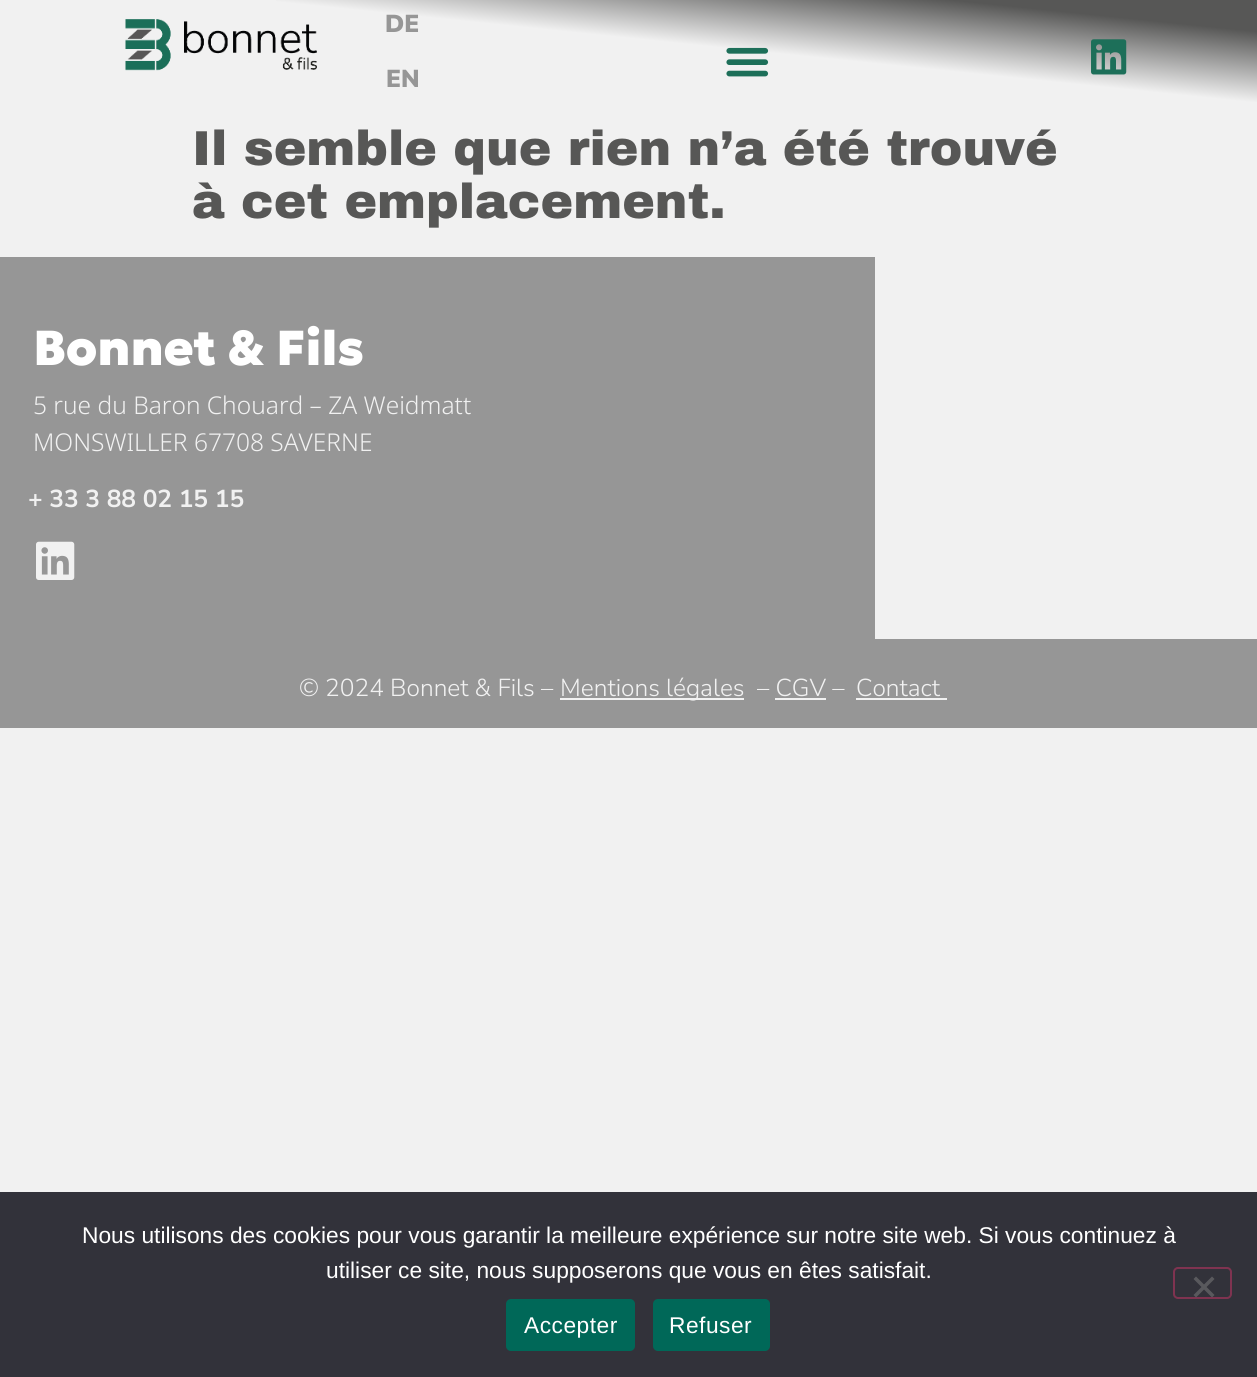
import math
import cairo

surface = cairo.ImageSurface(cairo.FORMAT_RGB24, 1257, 1377)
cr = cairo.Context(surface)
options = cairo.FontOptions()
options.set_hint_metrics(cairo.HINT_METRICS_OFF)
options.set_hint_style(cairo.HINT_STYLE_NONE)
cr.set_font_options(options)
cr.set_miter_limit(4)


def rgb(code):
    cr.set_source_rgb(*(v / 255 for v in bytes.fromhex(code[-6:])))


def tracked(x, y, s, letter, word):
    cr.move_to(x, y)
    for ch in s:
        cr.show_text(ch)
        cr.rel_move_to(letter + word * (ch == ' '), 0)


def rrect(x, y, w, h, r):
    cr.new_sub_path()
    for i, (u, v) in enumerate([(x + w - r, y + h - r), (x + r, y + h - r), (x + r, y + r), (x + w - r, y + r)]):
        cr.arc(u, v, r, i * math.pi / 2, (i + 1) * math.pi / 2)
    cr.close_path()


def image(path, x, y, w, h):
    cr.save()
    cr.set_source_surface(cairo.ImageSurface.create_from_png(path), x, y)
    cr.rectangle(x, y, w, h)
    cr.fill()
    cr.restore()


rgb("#f1f1f1")
cr.paint()
gradient = cairo.LinearGradient(642, -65, 616, 187)
gradient.add_color_stop_rgba(0.13, 0.341, 0.341, 0.337, 1)
gradient.add_color_stop_rgba(0.41, 0.945, 0.945, 0.945, 1)
cr.set_source(gradient)
cr.rectangle(276, 0, 981, 102)
cr.fill()
image("img/1.png", 125, 19, 192, 52)
image("img/2.png", 726, 47, 43, 30)
image("img/3.png", 1091, 39, 36, 36)
rgb("#969696")
cr.rectangle(0, 257, 875, 382)
cr.fill()
image("img/4.png", 36, 541, 39, 39)
for x, y, w, h, color in [
    (0, 639, 1257, 89, "#969696"),
    (560, 698, 184, 2, "#f1f1f1"),
    (856, 698, 91, 2, "#f1f1f1"),
    (775, 698, 51, 2, "#f1f1f1"),
    (0, 1192, 1257, 185, "#32323a"),
]:
    rgb(color)
    cr.rectangle(x, y, w, h)
    cr.fill()
rrect(1174, 1268, 57, 30, 4)
rgb("#7f3350")
cr.stroke()
rgb("#59595d")
cr.new_path()
cr.move_to(1212, 1276.5)
cr.line_to(1214.5, 1279)
cr.line_to(1196, 1297.5)
cr.line_to(1193.5, 1295)
cr.close_path()
cr.fill()
cr.new_path()
cr.move_to(1193.5, 1279)
cr.line_to(1196, 1276.5)
cr.line_to(1214.5, 1295)
cr.line_to(1212, 1297.5)
cr.close_path()
cr.fill()
rgb("#006858")
rrect(506, 1299, 129, 52, 5)
cr.fill()
rrect(653, 1299, 117, 52, 5)
cr.fill()
cr.select_font_face("Nunito Sans Black")
cr.set_font_size(24.5)
rgb("#969696")
cr.move_to(385, 32)
cr.show_text("DE")
cr.move_to(386, 87)
cr.show_text("EN")
cr.select_font_face("Archivo Black Black")
cr.set_font_size(49)
rgb("#575756")
cr.move_to(192, 165)
cr.show_text("Il semble que rien n’a été trouvé")
cr.move_to(192, 218)
cr.show_text("à cet emplacement.")
cr.select_font_face("Geologica Black")
rgb("#ffffff")
cr.move_to(33, 365)
cr.show_text("Bonnet & Fils")
cr.select_font_face("Noto Sans Light")
cr.set_font_size(24.5)
rgb("#f1f1f1")
cr.move_to(33, 414)
cr.show_text("5 rue du Baron Chouard – ZA Weidmatt")
cr.move_to(33, 451)
cr.show_text("MONSWILLER 67708 SAVERNE")
cr.select_font_face("Nunito Sans", cairo.FONT_SLANT_NORMAL, cairo.FONT_WEIGHT_BOLD)
cr.move_to(28, 507)
cr.show_text("+ 33 3 88 02 15 15")
cr.select_font_face("Nunito Sans Light")
for x, y, s in [
    (299, 696, "© 2024 Bonnet & Fils –"),
    (560, 696, "Mentions légales"),
    (757, 696, "– CGV –"),
    (856, 696, "Contact"),
]:
    cr.move_to(x, y)
    cr.show_text(s)
cr.select_font_face("Liberation Sans")
cr.set_font_size(22.75)
rgb("#ffffff")
cr.move_to(82, 1243)
cr.show_text("Nous utilisons des cookies pour vous garantir la meilleure expérience sur notre site web. Si vous continuez à")
cr.move_to(326, 1278)
cr.show_text("utiliser ce site, nous supposerons que vous en êtes satisfait.")
tracked(524, 1333, "Accepter", 0.5, 0)
tracked(669, 1333, "Refuser", 0.5, 0)
surface.write_to_png("page.png")
